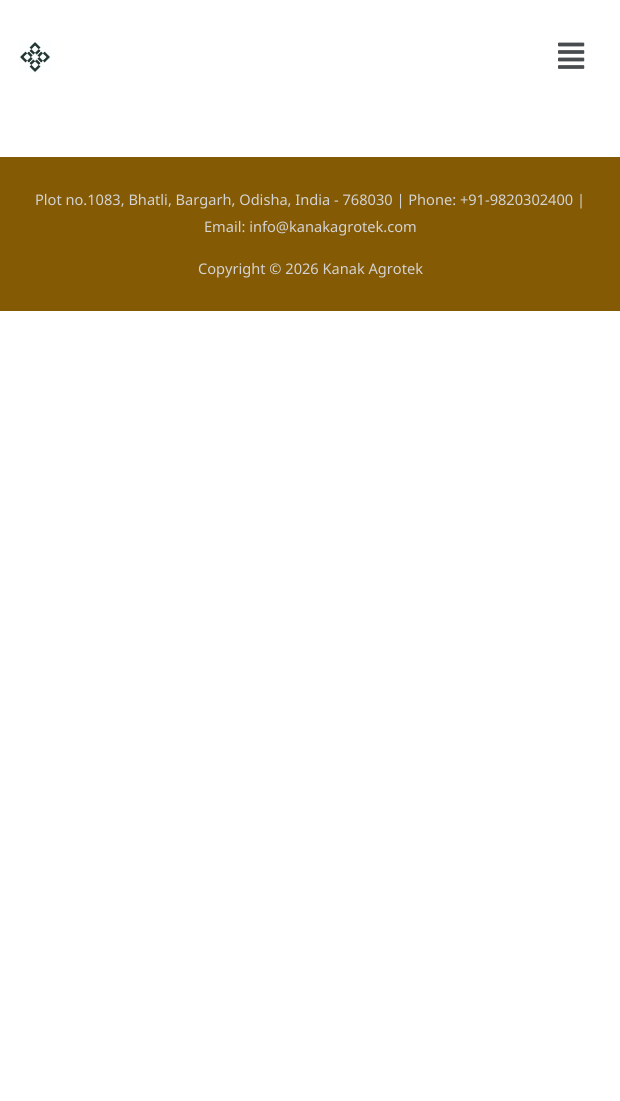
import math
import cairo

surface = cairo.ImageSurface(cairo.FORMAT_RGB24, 620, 1101)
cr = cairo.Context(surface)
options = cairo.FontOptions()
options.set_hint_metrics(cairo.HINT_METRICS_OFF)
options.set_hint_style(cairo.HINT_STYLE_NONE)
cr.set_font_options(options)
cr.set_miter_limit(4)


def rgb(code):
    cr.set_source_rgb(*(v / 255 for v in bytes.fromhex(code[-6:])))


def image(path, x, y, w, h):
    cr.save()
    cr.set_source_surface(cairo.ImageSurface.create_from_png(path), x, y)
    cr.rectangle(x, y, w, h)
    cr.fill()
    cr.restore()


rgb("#ffffff")
cr.paint()
image("img/1.png", 19, 41, 32, 32)
image("img/2.png", 558, 42, 27, 27)
rgb("#845a05")
cr.rectangle(0, 157, 620, 154)
cr.fill()
cr.select_font_face("Noto Sans")
cr.set_font_size(14.6)
rgb("#d3d3d3")
for x, y, s in [
    (35, 205, "Plot no.1083, Bhatli, Bargarh, Odisha, India - 768030 | Phone: +91-9820302400 |"),
    (204, 232, "Email: info@kanakagrotek.com"),
    (198, 274, "Copyright © 2026 Kanak Agrotek"),
]:
    cr.move_to(x, y)
    cr.show_text(s)
surface.write_to_png("page.png")
